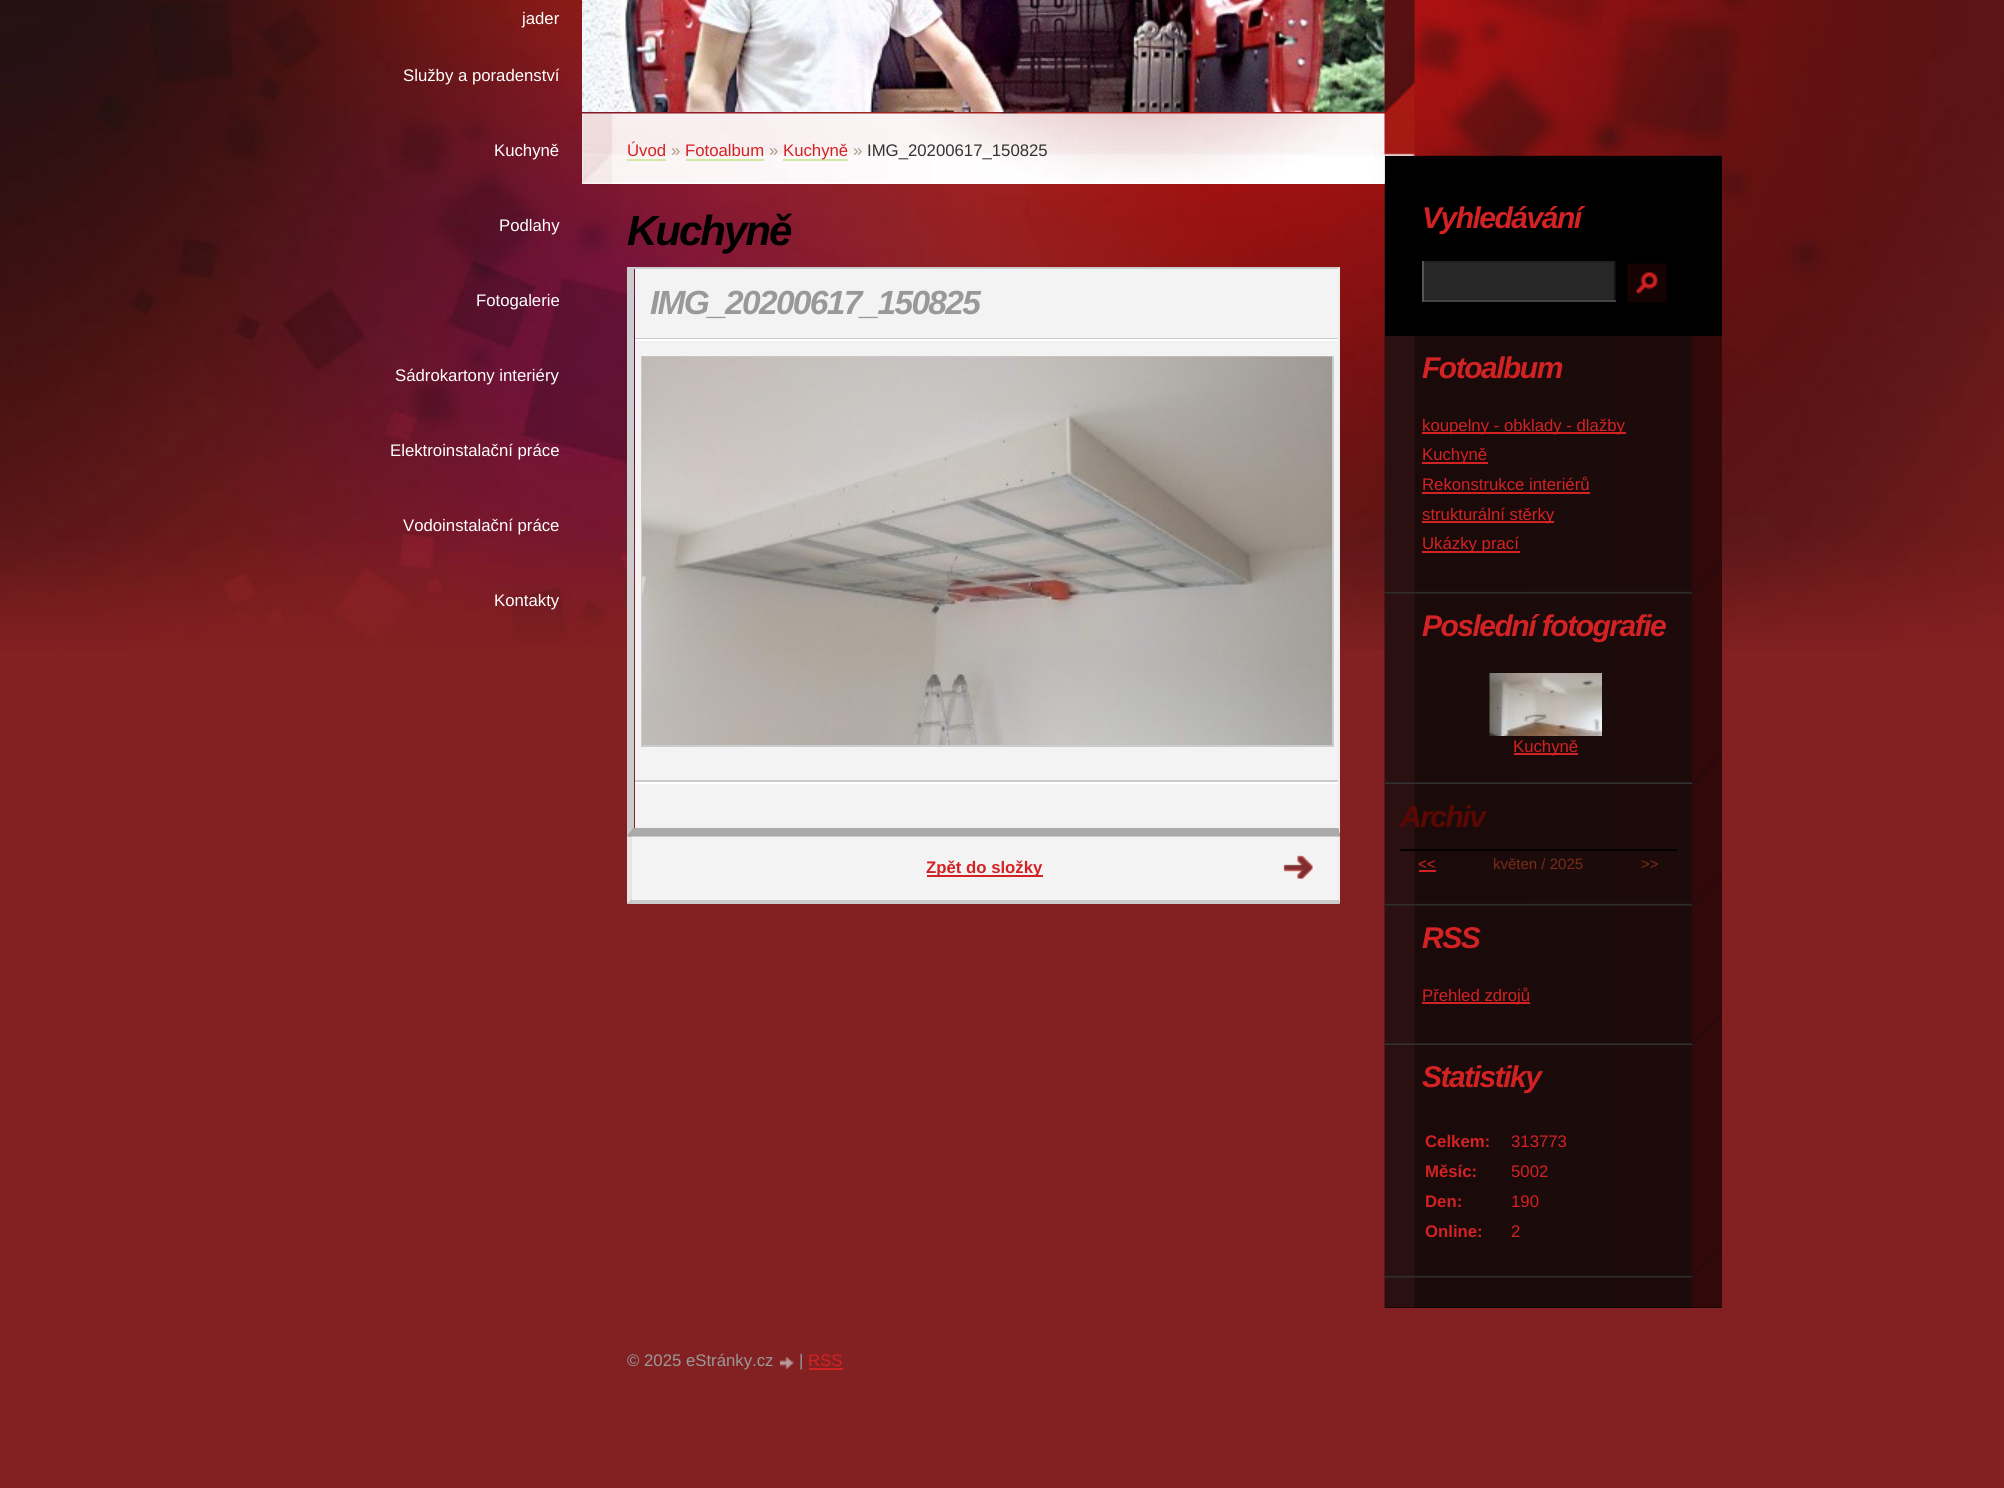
import math
import cairo

surface = cairo.ImageSurface(cairo.FORMAT_RGB24, 2004, 1488)
cr = cairo.Context(surface)
options = cairo.FontOptions()
options.set_hint_metrics(cairo.HINT_METRICS_OFF)
options.set_hint_style(cairo.HINT_STYLE_NONE)
cr.set_font_options(options)
cr.set_miter_limit(4)


def rgb(code):
    cr.set_source_rgb(*(v / 255 for v in bytes.fromhex(code[-6:])))


def tracked(x, y, s, letter, word):
    cr.move_to(x, y)
    for ch in s:
        cr.show_text(ch)
        cr.rel_move_to(letter + word * (ch == ' '), 0)


def image(path, x, y, w, h):
    cr.save()
    cr.set_source_surface(cairo.ImageSurface.create_from_png(path), x, y)
    cr.rectangle(x, y, w, h)
    cr.fill()
    cr.restore()


rgb("#832122")
cr.paint()
image("img/1.png", 0, 0, 2004, 650)
rgb("#000000")
cr.rectangle(1385, 1307, 337, 1)
cr.fill()
image("img/7.png", 1384, 155, 338, 1153)
image("img/4.png", 582, 113, 833, 71)
image("img/2.png", 1384, 0, 31, 114)
image("img/3.png", 582, 0, 803, 112)
for x, y, w, h, color in [
    (627, 159, 39, 2, "#d2e79f"),
    (686, 159, 78, 2, "#d2e79f"),
    (783, 159, 65, 2, "#d2e79f"),
    (635, 269, 703, 559, "#f3f3f3"),
    (627, 267, 713, 2, "#cccccc"),
]:
    rgb(color)
    cr.rectangle(x, y, w, h)
    cr.fill()
rgb("#eeeeee")
cr.new_path()
cr.move_to(1340, 267)
cr.line_to(1340, 836)
cr.line_to(1338, 828)
cr.line_to(1338, 268)
cr.close_path()
cr.fill()
rgb("#aaaaaa")
cr.new_path()
cr.move_to(1340, 836)
cr.line_to(627, 836)
cr.line_to(634, 828)
cr.line_to(1338, 828)
cr.close_path()
cr.fill()
rgb("#cccccc")
cr.new_path()
cr.move_to(627, 836)
cr.line_to(627, 267)
cr.line_to(634, 268)
cr.line_to(634, 828)
cr.close_path()
cr.fill()
for x, y, w, h, color in [
    (635, 338, 703, 1, "#cccccc"),
    (635, 339, 703, 2, "#ffffff"),
    (635, 780, 703, 2, "#cccccc"),
]:
    rgb(color)
    cr.rectangle(x, y, w, h)
    cr.fill()
cr.rectangle(642, 357, 691, 389)
cr.stroke()
image("img/5.png", 642, 356, 690, 389)
rgb("#ffffff")
cr.rectangle(635, 782, 703, 2)
cr.fill()
rgb("#f3f3f3")
cr.rectangle(632, 837, 706, 63)
cr.fill()
rgb("#cccccc")
cr.new_path()
cr.move_to(627, 836)
cr.line_to(1340, 836)
cr.line_to(1338, 837)
cr.line_to(632, 837)
cr.close_path()
cr.fill()
rgb("#eeeeee")
cr.new_path()
cr.move_to(1340, 836)
cr.line_to(1340, 904)
cr.line_to(1338, 900)
cr.line_to(1338, 837)
cr.close_path()
cr.fill()
rgb("#cccccc")
cr.new_path()
cr.move_to(1340, 904)
cr.line_to(627, 904)
cr.line_to(632, 900)
cr.line_to(1338, 900)
cr.close_path()
cr.fill()
rgb("#e5e5e5")
cr.new_path()
cr.move_to(627, 904)
cr.line_to(627, 836)
cr.line_to(632, 837)
cr.line_to(632, 900)
cr.close_path()
cr.fill()
rgb("#d22224")
cr.rectangle(927, 875, 116, 2)
cr.fill()
image("img/6.png", 1283, 855, 30, 24)
for x, y, w, h, color in [
    (1385, 156, 337, 180, "#000000"),
    (1424, 263, 190, 37, "#272727"),
    (1422, 261, 194, 2, "#222222"),
    (1614, 261, 2, 41, "#111111"),
    (1422, 300, 194, 2, "#444444"),
    (1422, 261, 2, 41, "#555555"),
]:
    rgb(color)
    cr.rectangle(x, y, w, h)
    cr.fill()
image("img/8.png", 1627, 263, 40, 40)
image("img/9.png", 1384, 563, 338, 31)
for x, y, w, h, color in [
    (1422, 432, 204, 2, "#d22224"),
    (1422, 462, 66, 2, "#d22224"),
    (1422, 492, 168, 2, "#d22224"),
    (1422, 521, 132, 2, "#d22224"),
    (1422, 551, 98, 2, "#d22224"),
]:
    rgb(color)
    cr.rectangle(x, y, w, h)
    cr.fill()
image("img/10.png", 1384, 754, 338, 30)
image("img/11.png", 1489, 673, 113, 63)
cr.rectangle(1514, 753, 64, 2)
cr.fill()
image("img/12.png", 1384, 875, 338, 31)
cr.rectangle(1419, 870, 17, 2)
cr.fill()
rgb("#000000")
cr.rectangle(1400, 849, 277, 2)
cr.fill()
image("img/10.png", 1384, 1015, 338, 30)
rgb("#d22224")
cr.rectangle(1422, 1002, 108, 2)
cr.fill()
image("img/13.png", 1384, 1247, 338, 31)
image("img/14.png", 780, 1357, 14, 12)
cr.rectangle(809, 1368, 34, 2)
cr.fill()
cr.select_font_face("Liberation Sans")
cr.set_font_size(16.75)
rgb("#ffffff")
for x, y, s in [
    (522, 24, "jader"),
    (403, 81, "Služby a poradenství"),
    (494, 156, "Kuchyně"),
    (499, 231, "Podlahy"),
    (476, 306, "Fotogalerie"),
    (395, 381, "Sádrokartony interiéry"),
    (390, 456, "Elektroinstalační práce"),
    (403, 531, "Vodoinstalační práce"),
    (494, 606, "Kontakty"),
]:
    cr.move_to(x, y)
    cr.show_text(s)
rgb("#d22224")
cr.move_to(627, 156)
cr.show_text("Úvod")
rgb("#a99985")
cr.move_to(671, 156)
cr.show_text("»")
rgb("#d22224")
cr.move_to(685, 156)
cr.show_text("Fotoalbum")
rgb("#a99985")
cr.move_to(769, 156)
cr.show_text("»")
rgb("#d22224")
cr.move_to(783, 156)
cr.show_text("Kuchyně")
rgb("#a99985")
cr.move_to(853, 156)
cr.show_text("»")
rgb("#333333")
cr.move_to(867, 156)
cr.show_text("IMG_20200617_150825")
cr.select_font_face("Liberation Sans", cairo.FONT_SLANT_ITALIC, cairo.FONT_WEIGHT_BOLD)
cr.set_font_size(42)
rgb("#000000")
tracked(627, 245, "Kuchyně", -2, 0)
cr.set_font_size(33.5)
rgb("#999999")
tracked(650, 314, "IMG_20200617_150825", -1.7, 0)
cr.select_font_face("Liberation Sans", cairo.FONT_SLANT_NORMAL, cairo.FONT_WEIGHT_BOLD)
cr.set_font_size(16.75)
rgb("#d22224")
cr.move_to(926, 873)
cr.show_text("Zpět do složky")
cr.select_font_face("Liberation Sans", cairo.FONT_SLANT_ITALIC, cairo.FONT_WEIGHT_BOLD)
cr.set_font_size(30)
tracked(1422, 228, "Vyhledávání", -1.5, 0)
tracked(1422, 378, "Fotoalbum", -1.5, 0)
cr.select_font_face("Liberation Sans")
cr.set_font_size(16.75)
for x, y, s in [
    (1422, 431, "koupelny - obklady - dlažby"),
    (1422, 460, "Kuchyně"),
    (1422, 490, "Rekonstrukce interiérů"),
    (1422, 520, "strukturální stěrky"),
    (1422, 549, "Ukázky prací"),
]:
    cr.move_to(x, y)
    cr.show_text(s)
cr.select_font_face("Liberation Sans", cairo.FONT_SLANT_ITALIC, cairo.FONT_WEIGHT_BOLD)
cr.set_font_size(30)
tracked(1422, 636, "Poslední fotografie", -1.5, 0)
cr.select_font_face("Liberation Sans")
cr.set_font_size(16.75)
cr.move_to(1513, 752)
cr.show_text("Kuchyně")
cr.select_font_face("Liberation Sans", cairo.FONT_SLANT_ITALIC, cairo.FONT_WEIGHT_BOLD)
cr.set_font_size(30)
rgb("#5b0802")
tracked(1400, 827, "Archiv", -1.5, 0)
cr.select_font_face("Liberation Sans")
cr.set_font_size(15)
rgb("#d22224")
cr.move_to(1418, 869)
cr.show_text("<<")
rgb("#7a2b18")
cr.move_to(1493, 869)
cr.show_text("květen / 2025")
cr.move_to(1641, 869)
cr.show_text(">>")
cr.select_font_face("Liberation Sans", cairo.FONT_SLANT_ITALIC, cairo.FONT_WEIGHT_BOLD)
cr.set_font_size(30)
rgb("#d22224")
tracked(1422, 948, "RSS", -1.5, 0)
cr.select_font_face("Liberation Sans")
cr.set_font_size(16.75)
cr.move_to(1422, 1001)
cr.show_text("Přehled zdrojů")
cr.select_font_face("Liberation Sans", cairo.FONT_SLANT_ITALIC, cairo.FONT_WEIGHT_BOLD)
cr.set_font_size(30)
tracked(1422, 1087, "Statistiky", -1.5, 0)
cr.select_font_face("Liberation Sans", cairo.FONT_SLANT_NORMAL, cairo.FONT_WEIGHT_BOLD)
cr.set_font_size(16.75)
cr.move_to(1425, 1147)
cr.show_text("Celkem:")
cr.select_font_face("Liberation Sans")
cr.move_to(1511, 1147)
cr.show_text("313773")
cr.select_font_face("Liberation Sans", cairo.FONT_SLANT_NORMAL, cairo.FONT_WEIGHT_BOLD)
cr.move_to(1425, 1177)
cr.show_text("Měsíc:")
cr.select_font_face("Liberation Sans")
cr.move_to(1511, 1177)
cr.show_text("5002")
cr.select_font_face("Liberation Sans", cairo.FONT_SLANT_NORMAL, cairo.FONT_WEIGHT_BOLD)
cr.move_to(1425, 1207)
cr.show_text("Den:")
cr.select_font_face("Liberation Sans")
cr.move_to(1511, 1207)
cr.show_text("190")
cr.select_font_face("Liberation Sans", cairo.FONT_SLANT_NORMAL, cairo.FONT_WEIGHT_BOLD)
cr.move_to(1425, 1237)
cr.show_text("Online:")
cr.select_font_face("Liberation Sans")
cr.move_to(1511, 1237)
cr.show_text("2")
rgb("#999999")
cr.move_to(627, 1366)
cr.show_text("© 2025 eStránky.cz")
cr.move_to(799, 1366)
cr.show_text("|")
rgb("#d22224")
cr.move_to(808, 1366)
cr.show_text("RSS")
surface.write_to_png("page.png")
